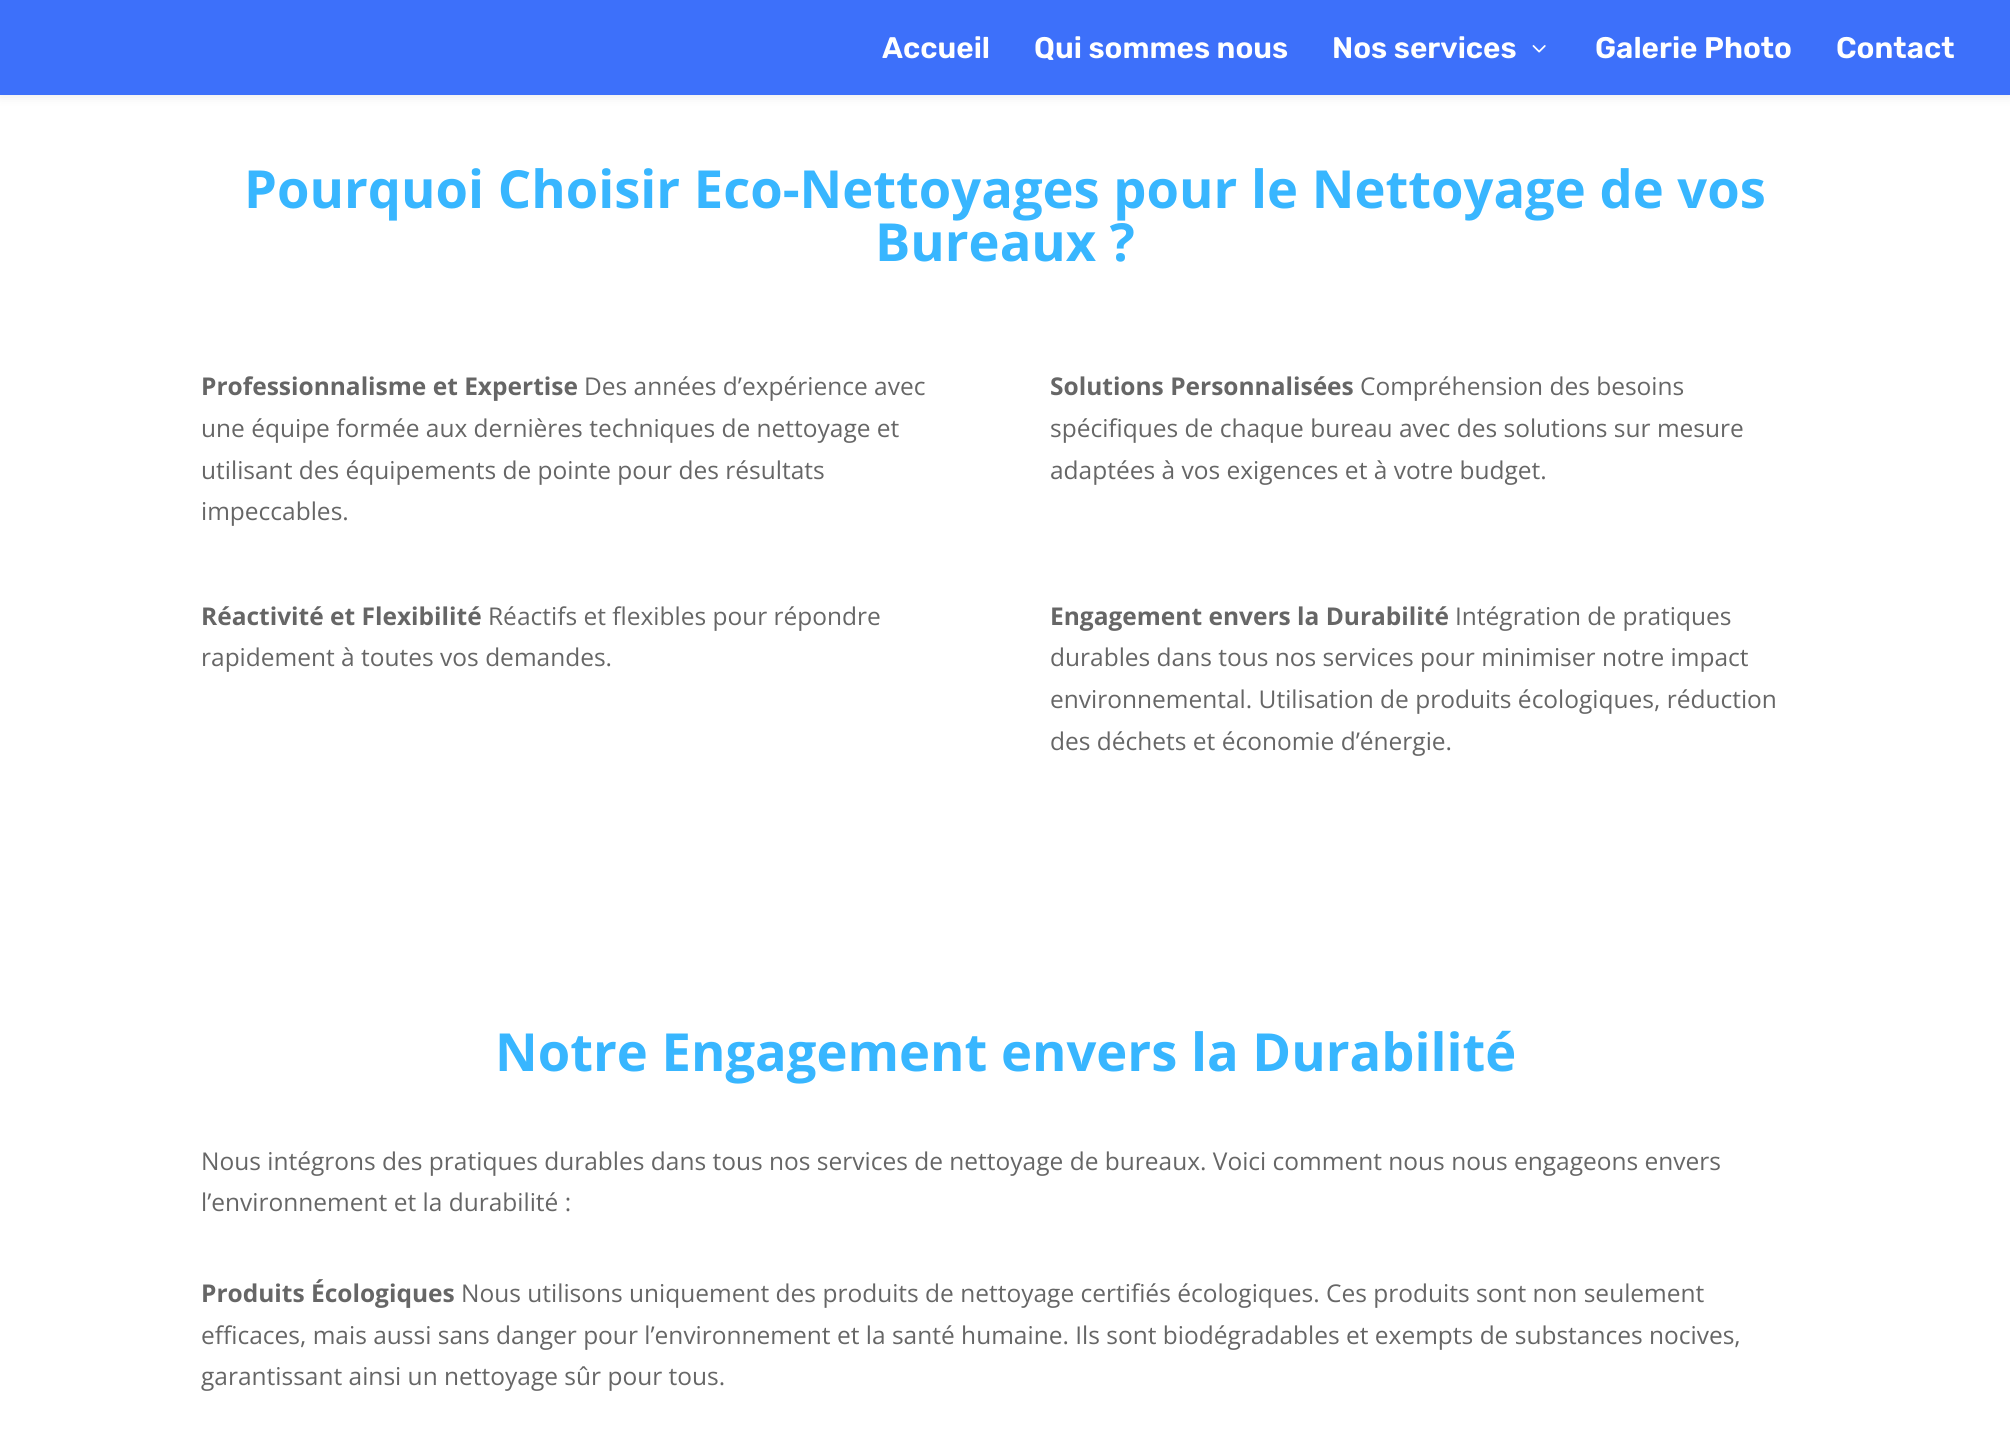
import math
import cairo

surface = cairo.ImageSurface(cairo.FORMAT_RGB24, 2010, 1445)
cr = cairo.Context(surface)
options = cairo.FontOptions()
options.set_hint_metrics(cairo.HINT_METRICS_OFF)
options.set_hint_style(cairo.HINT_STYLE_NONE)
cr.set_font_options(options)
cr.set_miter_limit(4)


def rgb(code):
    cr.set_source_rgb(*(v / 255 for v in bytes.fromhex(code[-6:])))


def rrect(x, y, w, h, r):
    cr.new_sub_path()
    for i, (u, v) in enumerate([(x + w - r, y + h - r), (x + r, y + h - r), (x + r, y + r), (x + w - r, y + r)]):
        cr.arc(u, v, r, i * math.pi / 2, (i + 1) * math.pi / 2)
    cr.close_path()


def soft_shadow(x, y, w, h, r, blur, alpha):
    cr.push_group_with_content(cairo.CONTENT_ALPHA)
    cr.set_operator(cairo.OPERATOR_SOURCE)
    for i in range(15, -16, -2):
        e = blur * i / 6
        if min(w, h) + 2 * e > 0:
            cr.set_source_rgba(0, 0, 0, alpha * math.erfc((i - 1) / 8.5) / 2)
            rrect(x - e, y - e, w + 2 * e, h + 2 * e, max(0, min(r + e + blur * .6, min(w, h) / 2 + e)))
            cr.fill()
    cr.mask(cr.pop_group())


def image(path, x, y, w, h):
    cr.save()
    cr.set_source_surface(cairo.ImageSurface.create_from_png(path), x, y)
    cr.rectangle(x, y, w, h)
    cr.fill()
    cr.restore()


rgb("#ffffff")
cr.paint()
rgb("#000000")
soft_shadow(0, 0, 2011, 95, 0, 6, 0.1)
rgb("#3d70fa")
cr.rectangle(0, 0, 2010, 95)
cr.fill()
image("img/1.png", 1532, 45, 14, 8)
cr.select_font_face("Rubik SemiBold")
cr.set_font_size(29.75)
rgb("#ffffff")
for x, y, s in [
    (882, 58, "Accueil"),
    (1034, 58, "Qui sommes nous"),
    (1332, 58, "Nos services"),
    (1595, 58, "Galerie Photo"),
    (1836, 58, "Contact"),
]:
    cr.move_to(x, y)
    cr.show_text(s)
cr.select_font_face("Open Sans", cairo.FONT_SLANT_NORMAL, cairo.FONT_WEIGHT_BOLD)
cr.set_font_size(52.5)
rgb("#38b6ff")
cr.move_to(244, 208)
cr.show_text("Pourquoi Choisir Eco-Nettoyages pour le Nettoyage de vos")
cr.move_to(875, 261)
cr.show_text("Bureaux ?")
cr.set_font_size(24.5)
rgb("#666666")
cr.move_to(201, 395)
cr.show_text("Professionnalisme et Expertise")
cr.select_font_face("Open Sans")
for x, y, s in [
    (584, 395, "Des années d’expérience avec"),
    (201, 437, "une équipe formée aux dernières techniques de nettoyage et"),
    (201, 479, "utilisant des équipements de pointe pour des résultats"),
    (201, 520, "impeccables."),
]:
    cr.move_to(x, y)
    cr.show_text(s)
cr.select_font_face("Open Sans", cairo.FONT_SLANT_NORMAL, cairo.FONT_WEIGHT_BOLD)
cr.move_to(1050, 395)
cr.show_text("Solutions Personnalisées")
cr.select_font_face("Open Sans")
for x, y, s in [
    (1360, 395, "Compréhension des besoins"),
    (1050, 437, "spécifiques de chaque bureau avec des solutions sur mesure"),
    (1050, 479, "adaptées à vos exigences et à votre budget."),
]:
    cr.move_to(x, y)
    cr.show_text(s)
cr.select_font_face("Open Sans", cairo.FONT_SLANT_NORMAL, cairo.FONT_WEIGHT_BOLD)
cr.move_to(201, 625)
cr.show_text("Réactivité et Flexibilité")
cr.select_font_face("Open Sans")
cr.move_to(488, 625)
cr.show_text("Réactifs et flexibles pour répondre")
cr.move_to(201, 666)
cr.show_text("rapidement à toutes vos demandes.")
cr.select_font_face("Open Sans", cairo.FONT_SLANT_NORMAL, cairo.FONT_WEIGHT_BOLD)
cr.move_to(1050, 625)
cr.show_text("Engagement envers la Durabilité")
cr.select_font_face("Open Sans")
for x, y, s in [
    (1455, 625, "Intégration de pratiques"),
    (1050, 666, "durables dans tous nos services pour minimiser notre impact"),
    (1050, 708, "environnemental. Utilisation de produits écologiques, réduction"),
    (1050, 750, "des déchets et économie d’énergie."),
]:
    cr.move_to(x, y)
    cr.show_text(s)
cr.select_font_face("Open Sans", cairo.FONT_SLANT_NORMAL, cairo.FONT_WEIGHT_BOLD)
cr.set_font_size(52.5)
rgb("#38b6ff")
cr.move_to(495, 1071)
cr.show_text("Notre Engagement envers la Durabilité")
cr.select_font_face("Open Sans")
cr.set_font_size(24.5)
rgb("#666666")
cr.move_to(201, 1170)
cr.show_text("Nous intégrons des pratiques durables dans tous nos services de nettoyage de bureaux. Voici comment nous nous engageons envers")
cr.move_to(201, 1211)
cr.show_text("l’environnement et la durabilité :")
cr.select_font_face("Open Sans", cairo.FONT_SLANT_NORMAL, cairo.FONT_WEIGHT_BOLD)
cr.move_to(201, 1302)
cr.show_text("Produits Écologiques")
cr.select_font_face("Open Sans")
for x, y, s in [
    (461, 1302, "Nous utilisons uniquement des produits de nettoyage certifiés écologiques. Ces produits sont non seulement"),
    (201, 1344, "efficaces, mais aussi sans danger pour l’environnement et la santé humaine. Ils sont biodégradables et exempts de substances nocives,"),
    (201, 1385, "garantissant ainsi un nettoyage sûr pour tous."),
]:
    cr.move_to(x, y)
    cr.show_text(s)
surface.write_to_png("page.png")
